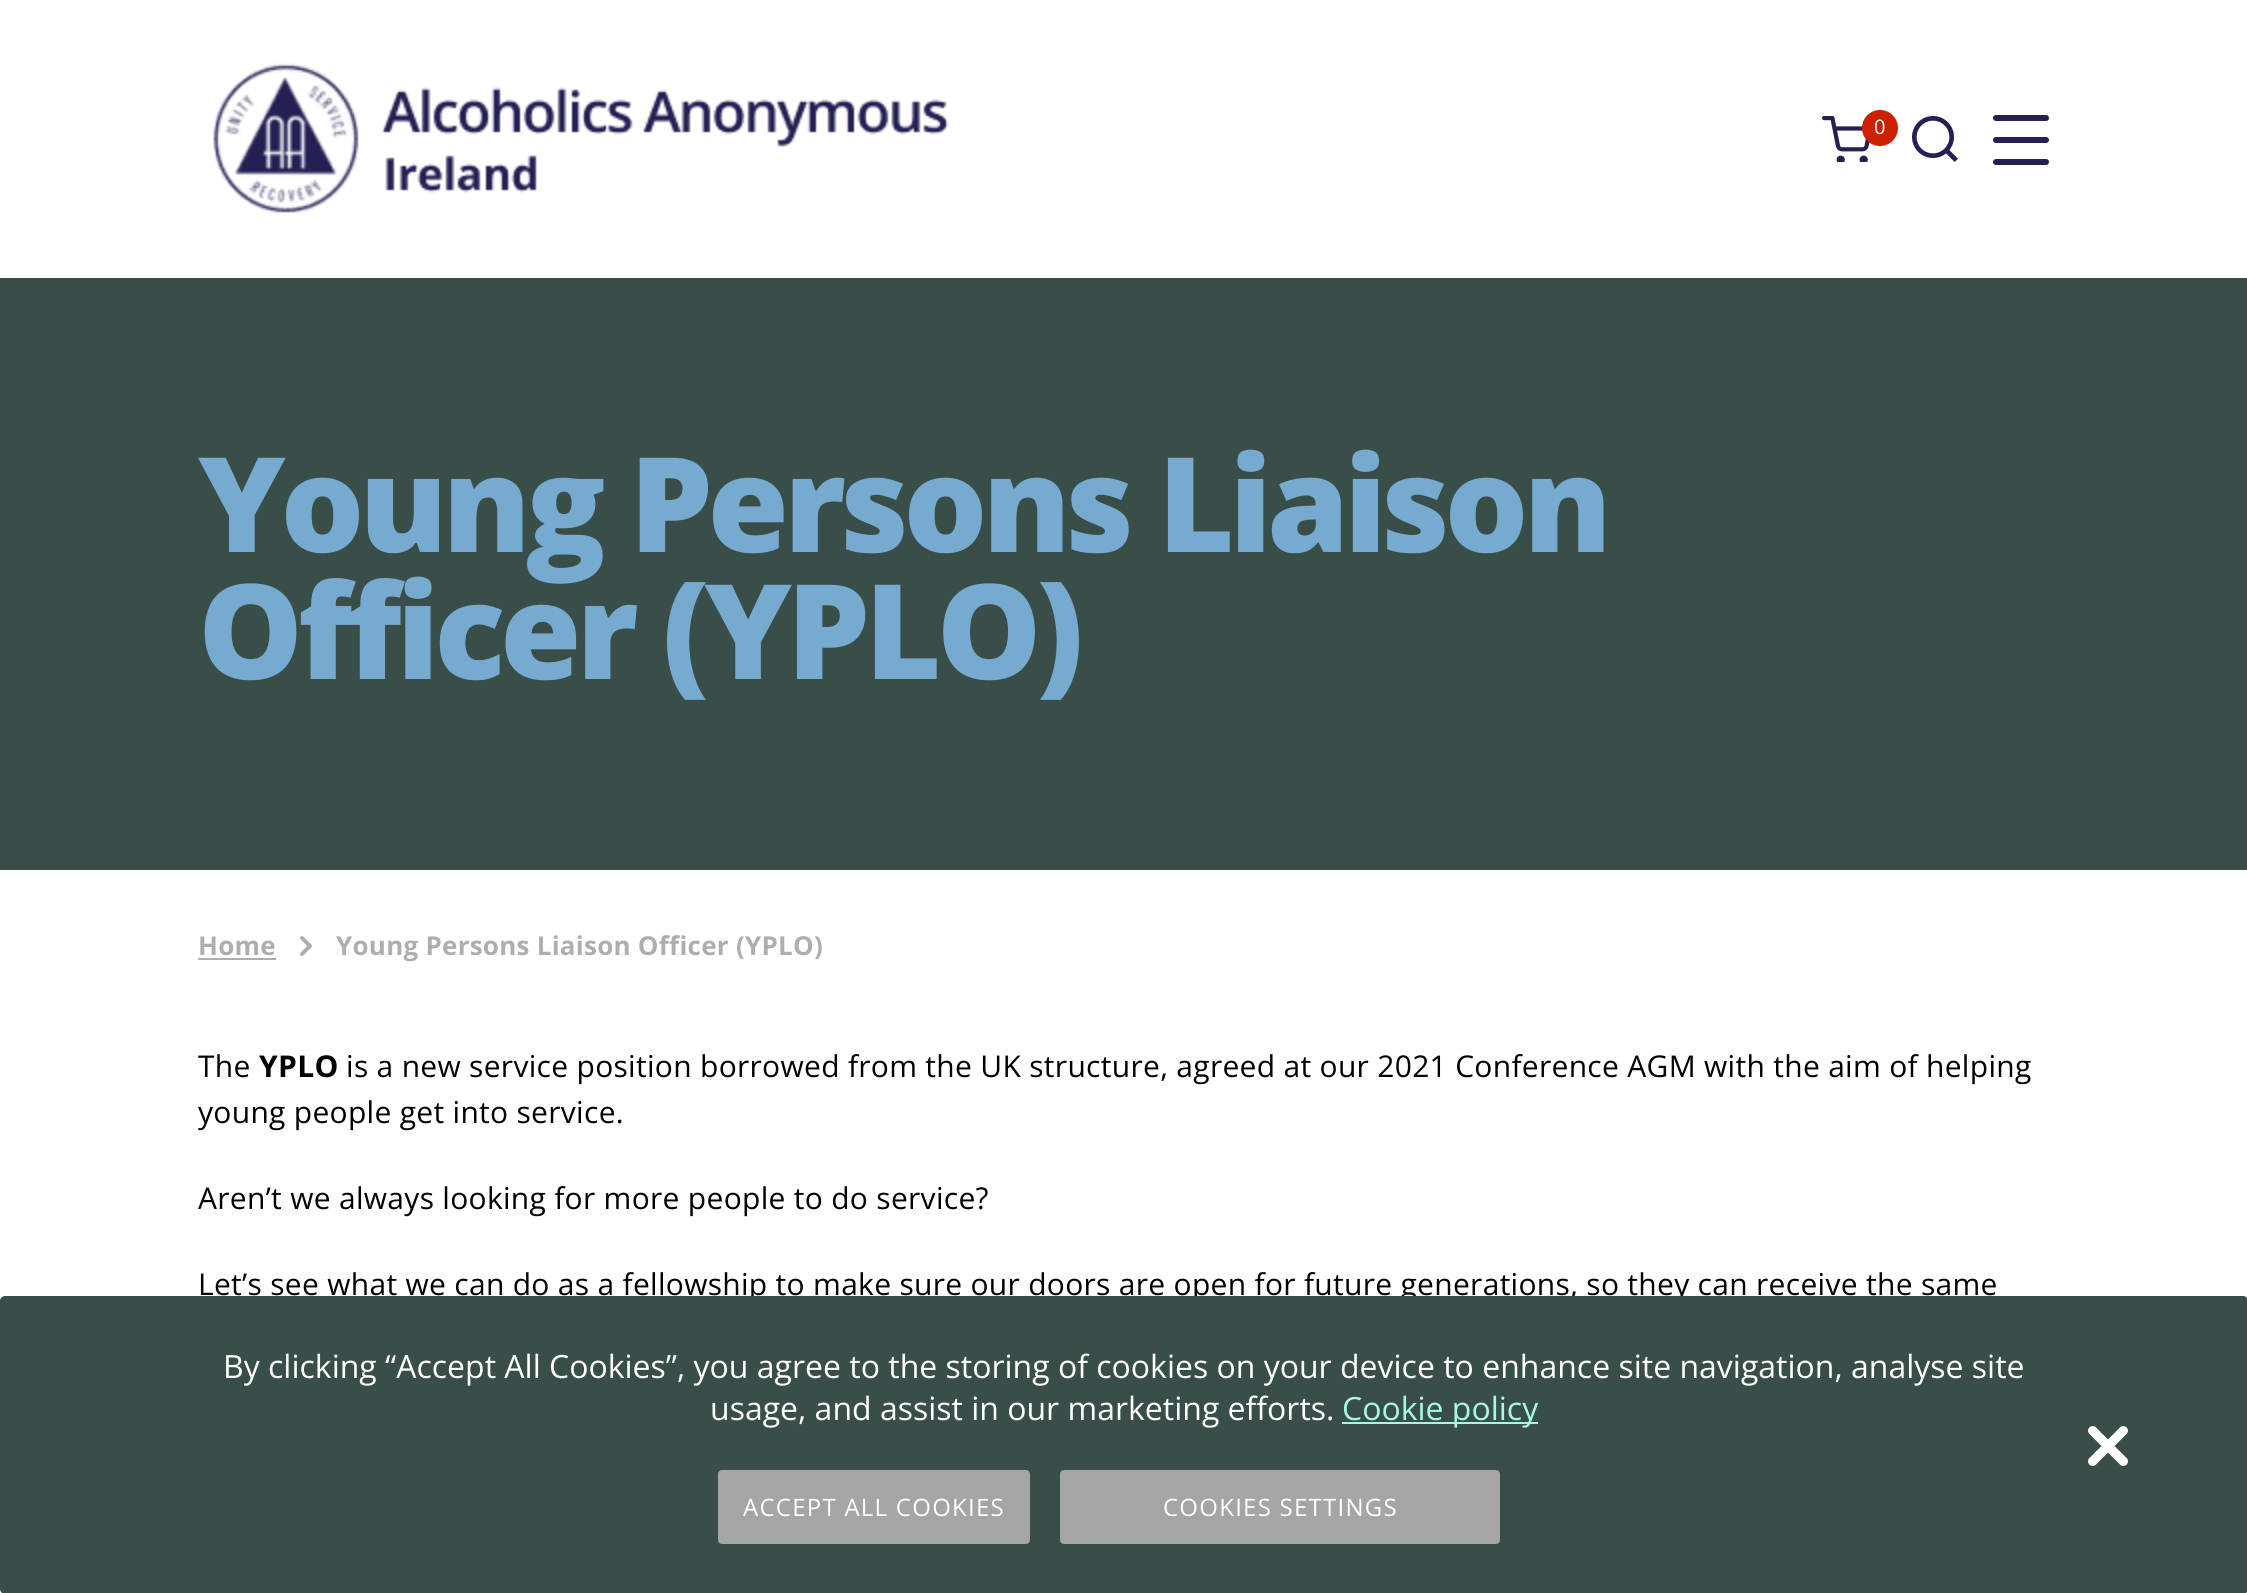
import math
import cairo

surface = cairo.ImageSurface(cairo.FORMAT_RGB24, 2247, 1593)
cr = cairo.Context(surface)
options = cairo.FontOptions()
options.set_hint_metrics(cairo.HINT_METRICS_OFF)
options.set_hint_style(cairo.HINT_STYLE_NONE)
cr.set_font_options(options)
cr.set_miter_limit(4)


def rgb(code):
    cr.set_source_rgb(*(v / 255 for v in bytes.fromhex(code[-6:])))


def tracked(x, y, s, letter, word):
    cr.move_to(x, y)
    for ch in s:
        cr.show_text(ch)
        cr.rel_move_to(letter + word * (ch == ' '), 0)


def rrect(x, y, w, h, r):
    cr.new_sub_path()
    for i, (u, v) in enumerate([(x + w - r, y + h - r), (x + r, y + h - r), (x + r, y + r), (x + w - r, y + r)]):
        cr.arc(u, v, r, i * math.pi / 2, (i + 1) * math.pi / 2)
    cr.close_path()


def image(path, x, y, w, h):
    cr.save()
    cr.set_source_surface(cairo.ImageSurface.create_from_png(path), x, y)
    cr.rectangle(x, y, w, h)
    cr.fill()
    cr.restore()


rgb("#ffffff")
cr.paint()
image("img/1.png", 213, 63, 736, 150)
image("img/2.png", 1822, 116, 48, 46)
rgb("#cd2000")
cr.arc(1880, 128, 18, 0, 2 * math.pi)
cr.fill()
image("img/3.png", 1912, 116, 46, 46)
cr.new_path()
cr.move_to(1996, 140)
cr.line_to(2046, 140)
cr.move_to(1996, 118)
cr.line_to(2046, 118)
cr.move_to(1996, 162)
cr.line_to(2046, 162)
rgb("#242054")
cr.set_line_width(6)
cr.set_line_cap(cairo.LINE_CAP_ROUND)
cr.set_line_join(cairo.LINE_JOIN_ROUND)
cr.stroke()
rgb("#3a4e49")
cr.rectangle(0, 278, 2247, 592)
cr.fill()
rgb("#aeaeae")
cr.rectangle(198, 958, 78, 2)
cr.fill()
cr.new_path()
cr.move_to(302, 954)
cr.line_to(310, 946)
cr.line_to(302, 938)
cr.set_line_width(4)
cr.stroke()
cr.select_font_face("Open Sans")
cr.set_font_size(20)
rgb("#ffffff")
tracked(1874, 134, "0", 0.3, 0)
cr.select_font_face("Open Sans ExtraBold")
cr.set_font_size(132)
rgb("#76aacf")
tracked(198, 552, "Young Persons Liaison", -5.25, 0)
tracked(198, 679, "Officer (YPLO)", -5.25, 0)
cr.select_font_face("Open Sans", cairo.FONT_SLANT_NORMAL, cairo.FONT_WEIGHT_BOLD)
cr.set_font_size(26)
rgb("#aeaeae")
tracked(198, 955, "Home", 0.25, 0)
tracked(336, 955, "Young Persons Liaison Officer (YPLO)", 0.25, 0)
cr.select_font_face("Open Sans")
cr.set_font_size(30)
rgb("#000000")
tracked(198, 1077, "The", 0.3, 0)
cr.select_font_face("Open Sans", cairo.FONT_SLANT_NORMAL, cairo.FONT_WEIGHT_BOLD)
tracked(259, 1077, "YPLO", 0.3, 0)
cr.select_font_face("Open Sans")
for x, y, s in [
    (346, 1077, "is a new service position borrowed from the UK structure, agreed at our 2021 Conference AGM with the aim of helping"),
    (198, 1123, "young people get into service."),
    (198, 1209, "Aren’t we always looking for more people to do service?"),
    (198, 1295, "Let’s see what we can do as a fellowship to make sure our doors are open for future generations, so they can receive the same"),
]:
    tracked(x, y, s, 0.3, 0)
rgb("#3a4e49")
rrect(0, 1296, 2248, 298, 5)
cr.fill()
cr.set_font_size(32)
rgb("#ffffff")
cr.move_to(223, 1378)
cr.show_text("By clicking “Accept All Cookies”, you agree to the storing of cookies on your device to enhance site navigation, analyse site")
cr.move_to(710, 1420)
cr.show_text("usage, and assist in our marketing efforts.")
rgb("#a6fae2")
cr.rectangle(1342, 1422, 196, 2)
cr.fill()
cr.move_to(1342, 1420)
cr.show_text("Cookie policy")
image("img/4.png", 2088, 1426, 40, 40)
rgb("#a5a5a5")
rrect(719, 1471, 310, 72, 3)
cr.fill_preserve()
cr.set_line_width(2)
cr.set_line_cap(cairo.LINE_CAP_BUTT)
cr.set_line_join(cairo.LINE_JOIN_MITER)
cr.stroke()
cr.set_font_size(24)
rgb("#ffffff")
tracked(743, 1516, "ACCEPT ALL COOKIES", 1.25, 0)
rgb("#a5a5a5")
rrect(1061, 1471, 438, 72, 3)
cr.fill_preserve()
cr.stroke()
rgb("#ffffff")
tracked(1163, 1516, "COOKIES SETTINGS", 1.25, 0)
surface.write_to_png("page.png")
